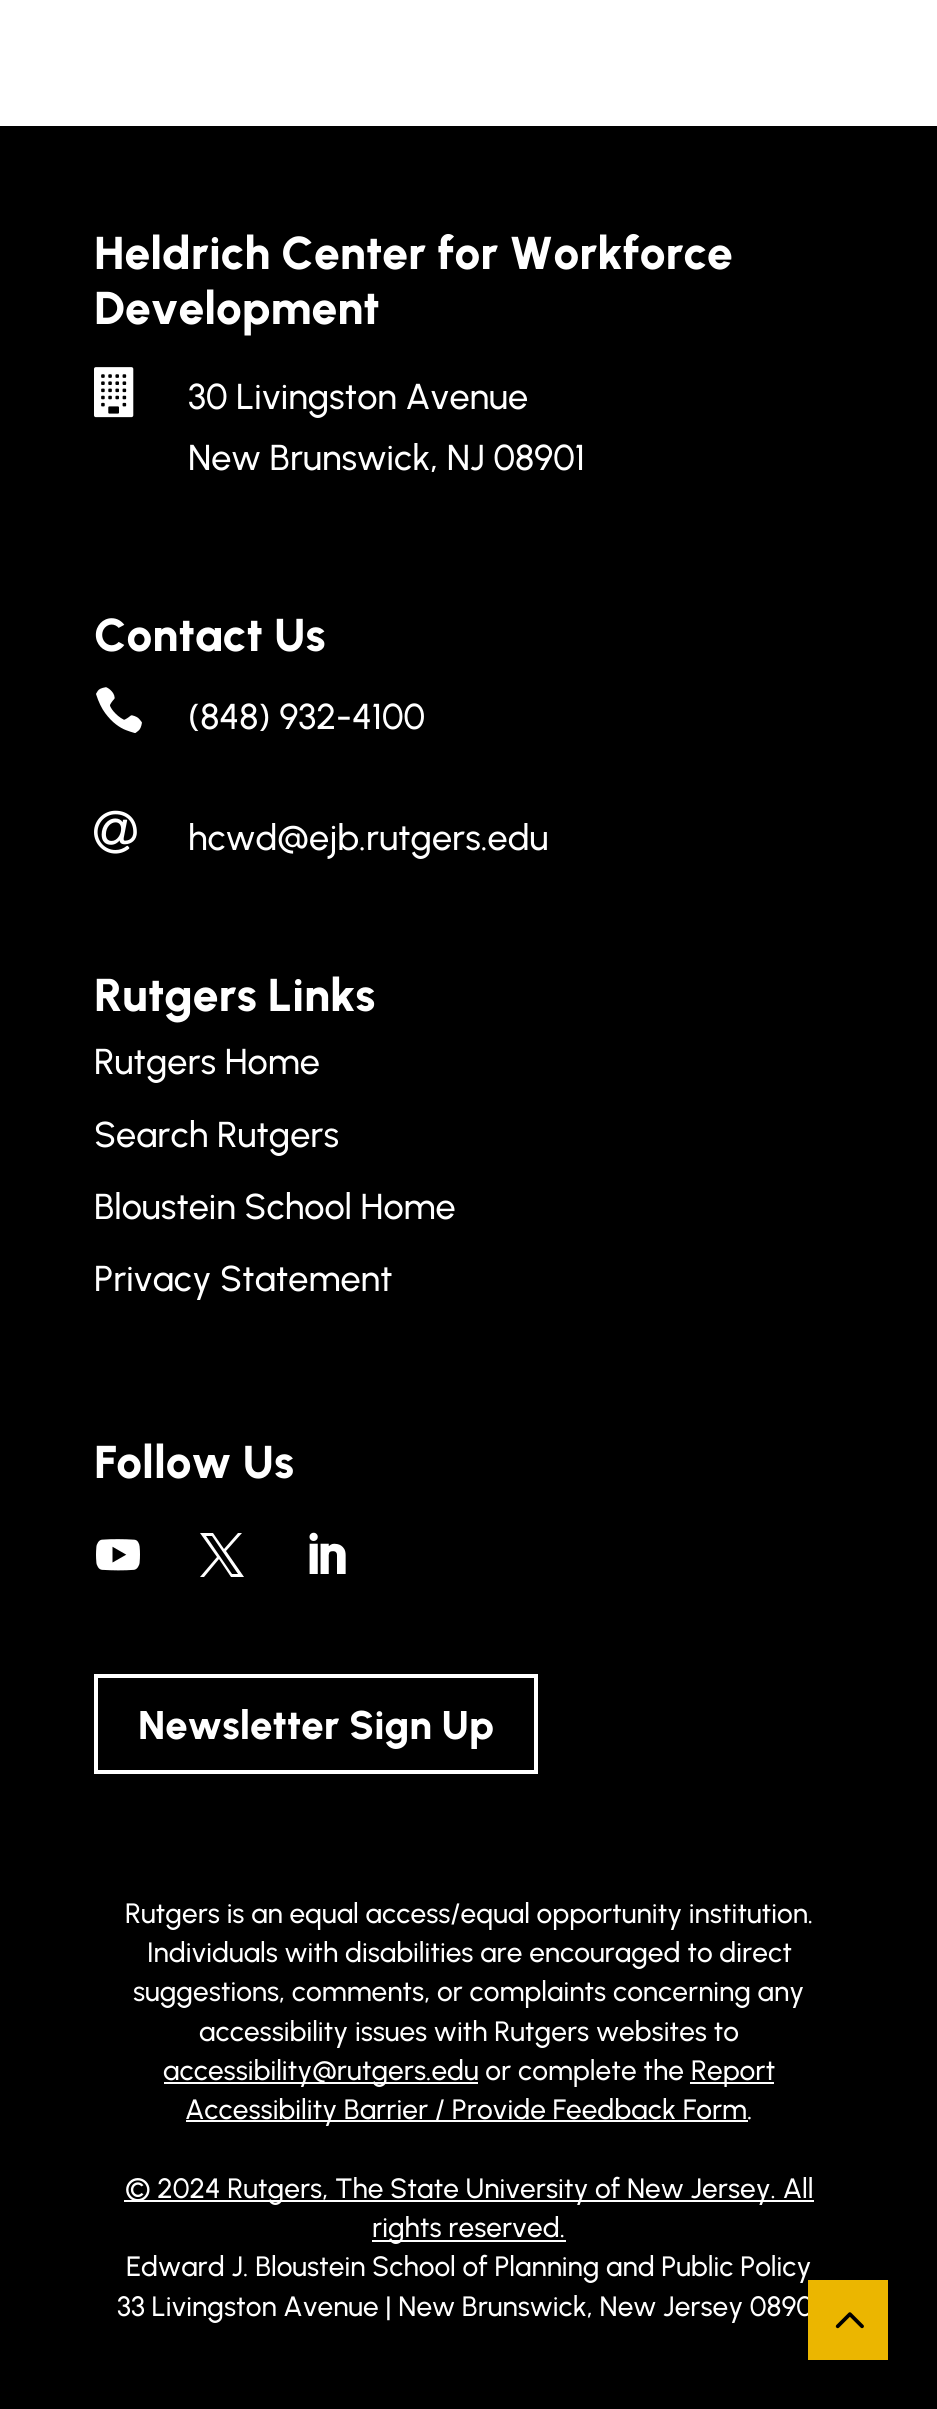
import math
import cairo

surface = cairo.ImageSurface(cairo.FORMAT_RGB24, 937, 2409)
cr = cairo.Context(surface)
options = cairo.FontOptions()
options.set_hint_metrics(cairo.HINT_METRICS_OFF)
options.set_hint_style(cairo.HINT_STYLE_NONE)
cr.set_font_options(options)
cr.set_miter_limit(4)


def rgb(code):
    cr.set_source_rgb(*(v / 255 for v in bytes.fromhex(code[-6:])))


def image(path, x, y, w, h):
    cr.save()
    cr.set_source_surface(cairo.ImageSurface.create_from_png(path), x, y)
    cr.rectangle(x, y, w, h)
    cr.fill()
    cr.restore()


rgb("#ffffff")
cr.paint()
rgb("#000000")
cr.rectangle(0, 126, 937, 2283)
cr.fill()
image("img/1.png", 94, 367, 40, 51)
image("img/2.png", 96, 687, 46, 46)
image("img/3.png", 94, 810, 43, 44)
image("img/4.png", 96, 1539, 44, 32)
rgb("#ffffff")
cr.new_path()
cr.move_to(200, 1533)
cr.line_to(217, 1557)
cr.line_to(200, 1577)
cr.line_to(204, 1577)
cr.line_to(219, 1559)
cr.line_to(231, 1577)
cr.line_to(244, 1577)
cr.line_to(226, 1551)
cr.line_to(242, 1533)
cr.line_to(238, 1533)
cr.line_to(224, 1549)
cr.line_to(213, 1533)
cr.close_path()
cr.move_to(206, 1536)
cr.line_to(212, 1536)
cr.line_to(238, 1574)
cr.line_to(232, 1574)
cr.close_path()
cr.fill()
image("img/5.png", 309, 1532, 37, 42)
cr.rectangle(96, 1676, 440, 96)
cr.set_line_width(4)
cr.stroke()
for x, y, w, h, color in [
    (164, 2082, 314, 2, "#ffffff"),
    (690, 2082, 84, 2, "#ffffff"),
    (186, 2120, 562, 2, "#ffffff"),
    (124, 2200, 690, 2, "#ffffff"),
    (372, 2240, 194, 2, "#ffffff"),
]:
    rgb(color)
    cr.rectangle(x, y, w, h)
    cr.fill()
cr.select_font_face("Urbanist ExtraBold")
cr.set_font_size(46)
cr.move_to(94, 269)
cr.show_text("Heldrich Center for Workforce")
cr.move_to(94, 324)
cr.show_text("Development")
cr.select_font_face("Urbanist Medium")
cr.set_font_size(36)
cr.move_to(188, 409)
cr.show_text("30 Livingston Avenue")
cr.move_to(188, 470)
cr.show_text("New Brunswick, NJ 08901")
cr.select_font_face("Urbanist ExtraBold")
cr.set_font_size(46)
cr.move_to(94, 651)
cr.show_text("Contact Us")
cr.select_font_face("Urbanist Medium")
cr.set_font_size(36)
cr.move_to(188, 729)
cr.show_text("(848) 932-4100")
cr.move_to(188, 850)
cr.show_text("hcwd@ejb.rutgers.edu")
cr.select_font_face("Urbanist ExtraBold")
cr.set_font_size(46)
cr.move_to(94, 1011)
cr.show_text("Rutgers Links")
cr.select_font_face("Urbanist Medium")
cr.set_font_size(36)
for x, y, s in [
    (94, 1074, "Rutgers Home"),
    (94, 1147, "Search Rutgers"),
    (94, 1219, "Bloustein School Home"),
    (94, 1291, "Privacy Statement"),
]:
    cr.move_to(x, y)
    cr.show_text(s)
cr.select_font_face("Urbanist ExtraBold")
cr.set_font_size(46)
cr.move_to(94, 1478)
cr.show_text("Follow Us")
cr.set_font_size(40)
cr.move_to(138, 1739)
cr.show_text("Newsletter Sign Up")
cr.select_font_face("Urbanist Medium")
cr.set_font_size(28)
for x, y, s in [
    (125, 1923, "Rutgers is an equal access/equal opportunity institution."),
    (147, 1962, "Individuals with disabilities are encouraged to direct"),
    (133, 2001, "suggestions, comments, or complaints concerning any"),
    (199, 2041, "accessibility issues with Rutgers websites to"),
    (163, 2080, "accessibility@rutgers.edu or complete the"),
    (691, 2080, "Report"),
    (185, 2119, "Accessibility Barrier / Provide Feedback Form."),
    (125, 2198, "© 2024 Rutgers, The State University of New Jersey. All"),
    (372, 2237, "rights reserved."),
    (126, 2276, "Edward J. Bloustein School of Planning and Public Policy"),
    (117, 2316, "33 Livingston Avenue | New Brunswick, New Jersey 0890"),
]:
    cr.move_to(x, y)
    cr.show_text(s)
rgb("#ebb600")
cr.rectangle(808, 2280, 80, 80)
cr.fill()
image("img/6.png", 835, 2312, 29, 17)
surface.write_to_png("page.png")
